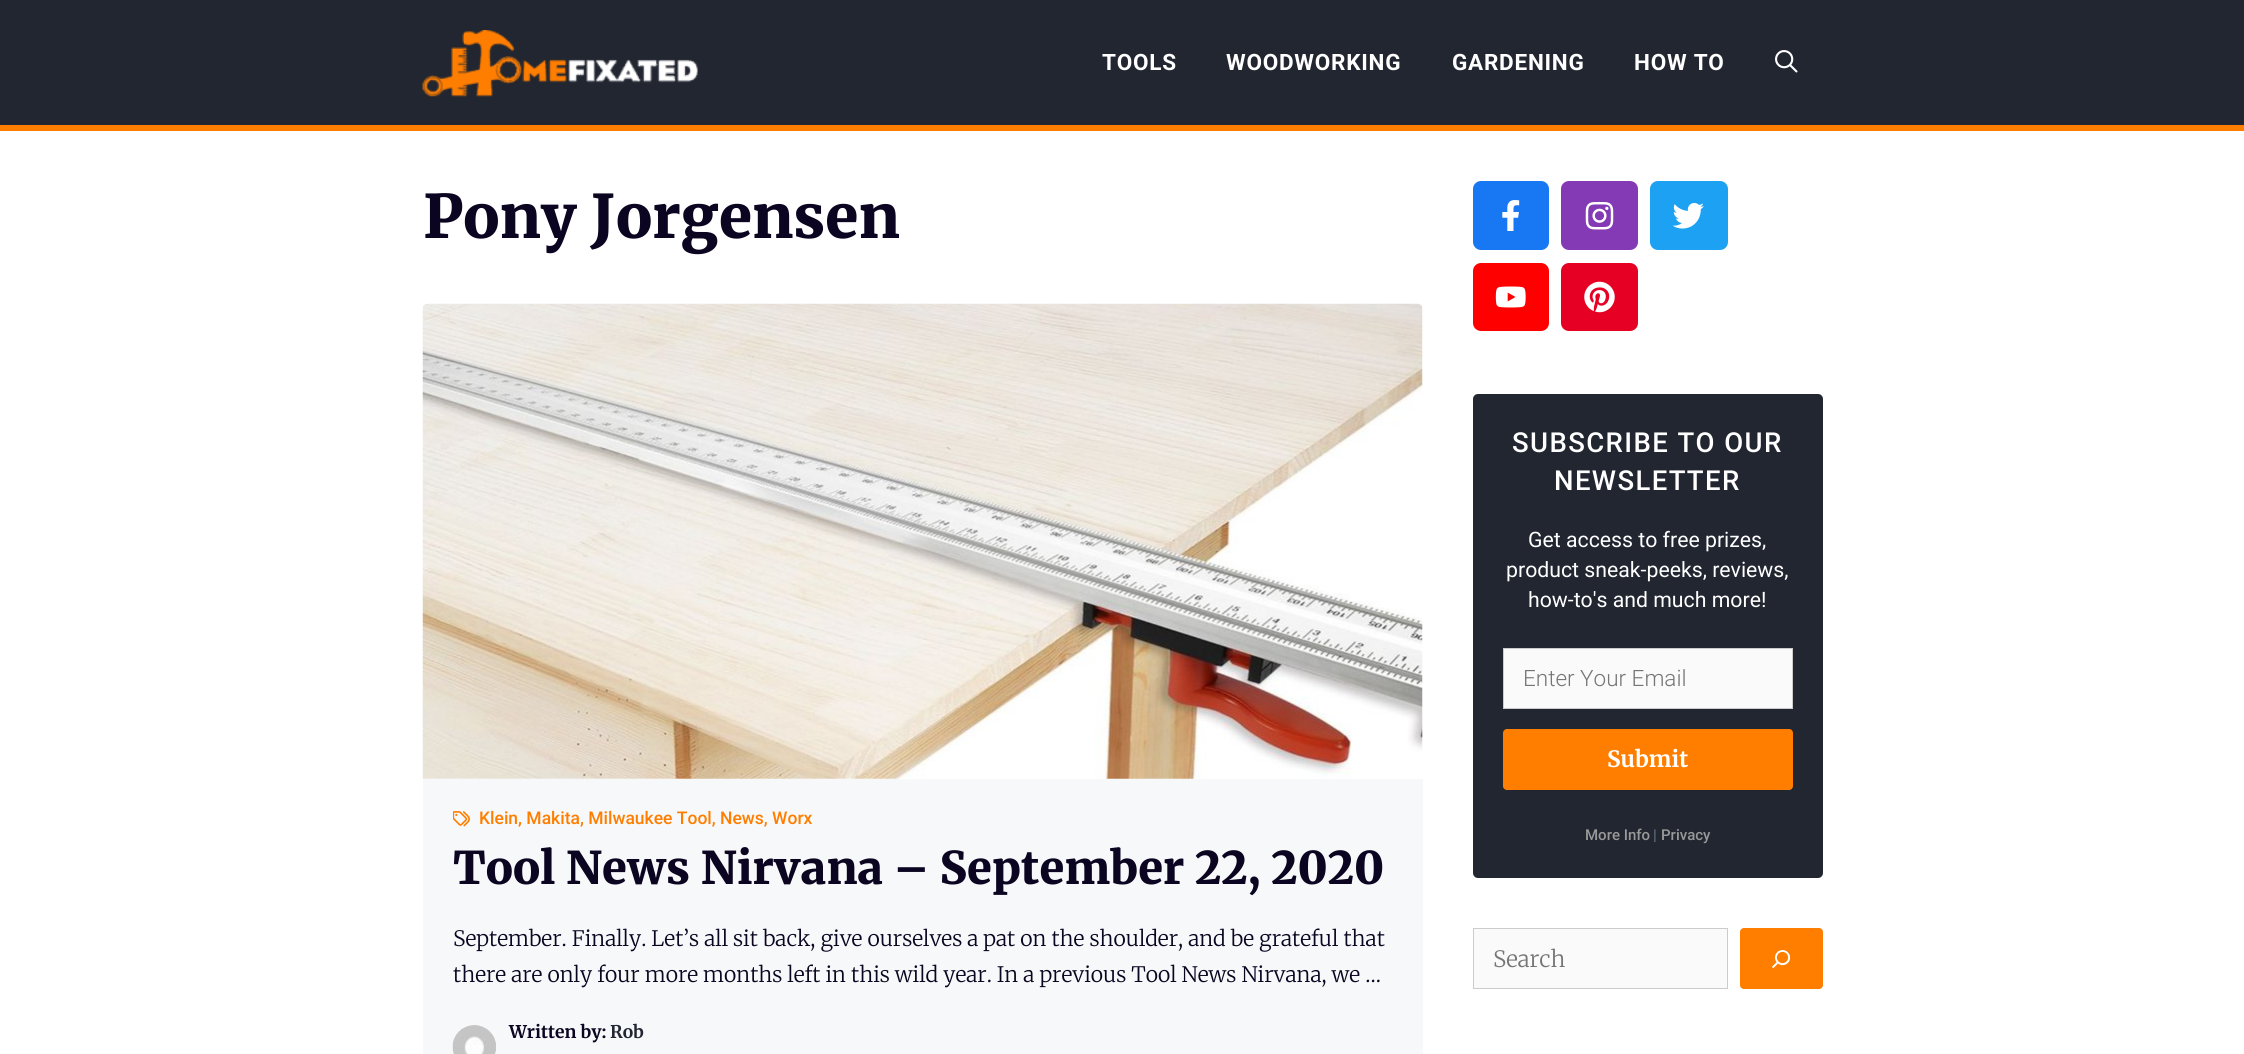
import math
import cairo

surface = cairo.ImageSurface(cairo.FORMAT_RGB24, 2244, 1054)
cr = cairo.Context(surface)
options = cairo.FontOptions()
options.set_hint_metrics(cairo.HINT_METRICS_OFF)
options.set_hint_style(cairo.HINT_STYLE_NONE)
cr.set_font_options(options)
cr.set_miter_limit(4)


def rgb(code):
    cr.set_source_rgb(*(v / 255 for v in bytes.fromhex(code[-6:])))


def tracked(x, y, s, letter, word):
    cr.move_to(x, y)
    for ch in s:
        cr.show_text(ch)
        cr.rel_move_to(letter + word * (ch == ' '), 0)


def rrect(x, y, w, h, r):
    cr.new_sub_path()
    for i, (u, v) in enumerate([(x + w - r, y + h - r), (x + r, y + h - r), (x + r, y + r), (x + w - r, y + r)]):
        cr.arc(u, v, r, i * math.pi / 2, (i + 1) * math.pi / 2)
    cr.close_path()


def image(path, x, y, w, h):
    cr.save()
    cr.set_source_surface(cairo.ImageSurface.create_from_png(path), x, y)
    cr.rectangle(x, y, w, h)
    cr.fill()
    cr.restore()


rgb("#ffffff")
cr.paint()
rgb("#222631")
cr.rectangle(0, 0, 2244, 125)
cr.fill()
rgb("#ff7e00")
cr.rectangle(0, 125, 2244, 6)
cr.fill()
image("img/1.png", 422, 30, 276, 67)
image("img/2.png", 1775, 50, 23, 23)
image("img/3.png", 422, 303, 1001, 476)
rgb("#f7f8f9")
cr.rectangle(423, 779, 1000, 275)
cr.fill()
image("img/4.png", 453, 811, 17, 16)
image("img/5.png", 452, 1025, 44, 29)
rgb("#1877f2")
rrect(1473, 181, 76, 69, 8)
cr.fill()
image("img/6.png", 1502, 200, 18, 31)
rgb("#833ab4")
rrect(1561, 181, 77, 69, 8)
cr.fill()
image("img/7.png", 1585, 201, 29, 29)
rgb("#1da1f2")
rrect(1650, 181, 78, 69, 8)
cr.fill()
image("img/8.png", 1673, 203, 31, 26)
rgb("#ff0000")
rrect(1473, 263, 76, 68, 8)
cr.fill()
image("img/9.png", 1495, 286, 31, 22)
rgb("#e60023")
rrect(1561, 263, 77, 68, 8)
cr.fill()
image("img/10.png", 1584, 281, 31, 32)
rgb("#222631")
rrect(1473, 394, 350, 484, 5)
cr.fill()
rgb("#fafafa")
cr.rectangle(1503.5, 648.5, 289, 60)
cr.fill_preserve()
rgb("#cccccc")
cr.set_line_width(1)
cr.stroke()
rgb("#ff7e00")
rrect(1503, 729, 290, 61, 4)
cr.fill()
rgb("#fafafa")
cr.rectangle(1473.5, 928.5, 254, 60)
cr.fill_preserve()
rgb("#cccccc")
cr.stroke()
rgb("#ff7e00")
rrect(1740, 928, 83, 61, 4)
cr.fill()
image("img/11.png", 1772, 950, 19, 19)
cr.select_font_face("Roboto", cairo.FONT_SLANT_NORMAL, cairo.FONT_WEIGHT_BOLD)
cr.set_font_size(22.5)
rgb("#ffffff")
for x, y, s in [
    (1102, 70, "TOOLS"),
    (1226, 70, "WOODWORKING"),
    (1452, 70, "GARDENING"),
    (1634, 70, "HOW TO"),
]:
    tracked(x, y, s, 0.75, 0)
cr.select_font_face("Merriweather Black")
cr.set_font_size(60)
rgb("#0b0521")
cr.move_to(423, 238)
cr.show_text("Pony Jorgensen")
cr.select_font_face("Roboto Medium")
cr.set_font_size(17.5)
rgb("#ff7e00")
cr.move_to(479, 824)
cr.show_text("Klein, Makita, Milwaukee Tool, News, Worx")
cr.select_font_face("Merriweather Black")
cr.set_font_size(45)
rgb("#0b0521")
cr.move_to(453, 884)
cr.show_text("Tool News Nirvana – September 22, 2020")
cr.select_font_face("Merriweather Light")
cr.set_font_size(21.25)
cr.move_to(453, 946)
cr.show_text("September. Finally. Let’s all sit back, give ourselves a pat on the shoulder, and be grateful that")
cr.move_to(453, 982)
cr.show_text("there are only four more months left in this wild year. In a previous Tool News Nirvana, we …")
cr.select_font_face("Merriweather", cairo.FONT_SLANT_NORMAL, cairo.FONT_WEIGHT_BOLD)
cr.set_font_size(17.5)
cr.move_to(509, 1038)
cr.show_text("Written by:")
rgb("#222631")
cr.move_to(610, 1038)
cr.show_text("Rob")
cr.select_font_face("Roboto Medium")
cr.set_font_size(27.5)
rgb("#ffffff")
tracked(1512, 452, "SUBSCRIBE TO OUR", 1.4, 0)
tracked(1554, 490, "NEWSLETTER", 1.4, 0)
cr.select_font_face("Roboto")
cr.set_font_size(21.25)
for x, y, s in [
    (1528, 547, "Get access to free prizes,"),
    (1506, 577, "product sneak-peeks, reviews,"),
    (1528, 607, "how-to's and much more!"),
]:
    cr.move_to(x, y)
    cr.show_text(s)
cr.select_font_face("Roboto Light")
cr.set_font_size(22.5)
rgb("#757575")
cr.move_to(1523, 686)
cr.show_text("Enter Your Email")
cr.select_font_face("Merriweather", cairo.FONT_SLANT_NORMAL, cairo.FONT_WEIGHT_BOLD)
rgb("#ffffff")
cr.move_to(1607, 767)
cr.show_text("Submit")
cr.select_font_face("Roboto Medium")
cr.set_font_size(15)
rgb("#999999")
cr.move_to(1585, 840)
cr.show_text("More Info")
rgb("#62707c")
cr.move_to(1653, 840)
cr.show_text("|")
rgb("#999999")
cr.move_to(1661, 840)
cr.show_text("Privacy")
cr.select_font_face("Merriweather Light")
cr.set_font_size(22.5)
rgb("#757575")
cr.move_to(1493, 967)
cr.show_text("Search")
surface.write_to_png("page.png")
